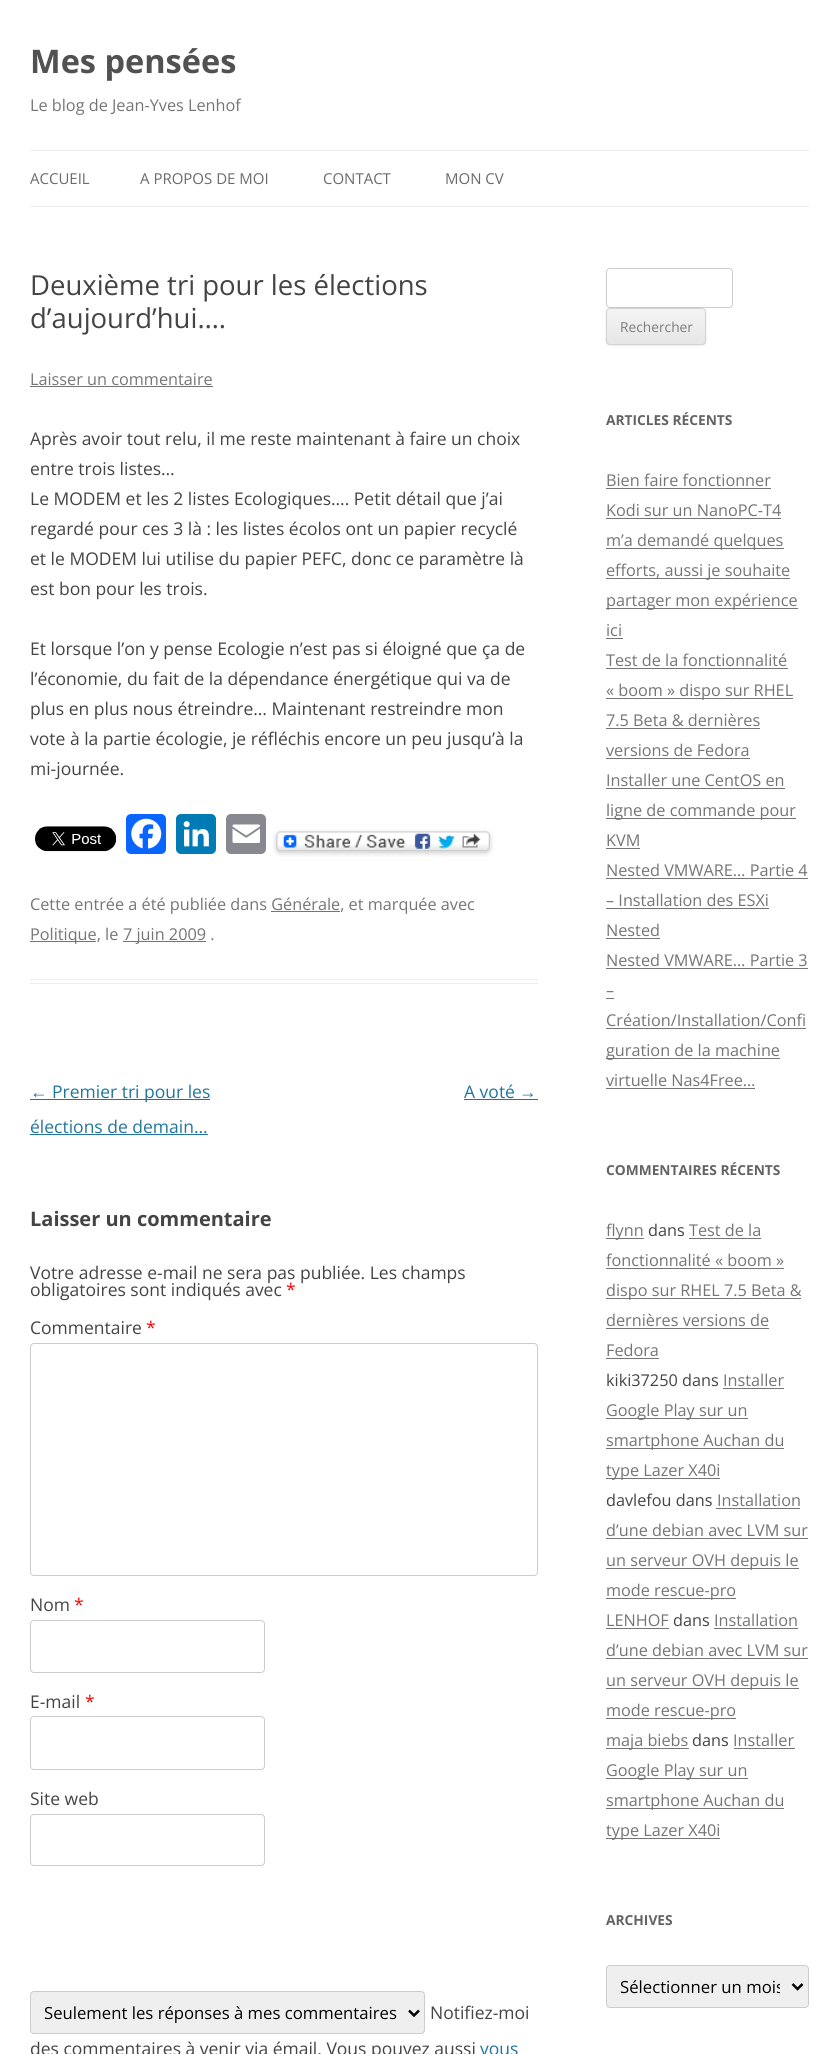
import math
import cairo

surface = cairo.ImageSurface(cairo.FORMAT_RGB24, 838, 2054)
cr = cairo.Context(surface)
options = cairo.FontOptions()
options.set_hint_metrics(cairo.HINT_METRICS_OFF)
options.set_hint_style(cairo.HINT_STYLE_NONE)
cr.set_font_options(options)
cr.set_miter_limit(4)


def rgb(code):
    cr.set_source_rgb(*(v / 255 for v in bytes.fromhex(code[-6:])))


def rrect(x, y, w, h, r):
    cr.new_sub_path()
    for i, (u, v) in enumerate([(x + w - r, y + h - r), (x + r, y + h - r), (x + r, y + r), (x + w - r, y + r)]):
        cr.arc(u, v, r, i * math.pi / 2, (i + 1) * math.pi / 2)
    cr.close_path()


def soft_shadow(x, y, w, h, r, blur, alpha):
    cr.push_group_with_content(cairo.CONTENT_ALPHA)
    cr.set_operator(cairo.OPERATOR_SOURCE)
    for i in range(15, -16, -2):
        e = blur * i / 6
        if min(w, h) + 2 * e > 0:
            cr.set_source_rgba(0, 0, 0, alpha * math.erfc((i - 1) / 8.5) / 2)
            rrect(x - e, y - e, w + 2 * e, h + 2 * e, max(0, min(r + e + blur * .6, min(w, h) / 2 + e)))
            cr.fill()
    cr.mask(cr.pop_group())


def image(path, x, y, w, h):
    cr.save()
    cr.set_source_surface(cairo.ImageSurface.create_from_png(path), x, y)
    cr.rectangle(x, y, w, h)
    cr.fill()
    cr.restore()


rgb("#ffffff")
cr.paint()
for x, y, w, h, color in [
    (30, 150, 779, 1, "#ededed"),
    (30, 206, 779, 1, "#ededed"),
    (30, 979, 508, 1, "#ededed"),
    (30, 983, 508, 1, "#ededed"),
    (30, 386, 183, 1, "#757575"),
]:
    rgb(color)
    cr.rectangle(x, y, w, h)
    cr.fill()
image("img/1.png", 35, 826, 82, 26)
rgb("#0866ff")
rrect(126, 814, 40, 40, 5)
cr.fill()
image("img/2.png", 131, 818, 31, 31)
rgb("#007bb5")
rrect(176, 814, 40, 40, 5)
cr.fill()
image("img/3.png", 183, 821, 26, 26)
rgb("#888990")
rrect(226, 814, 40, 40, 5)
cr.fill()
image("img/4.png", 232, 824, 28, 19)
rgb("#000000")
soft_shadow(276, 833, 214, 20, 4, 2.5, 0.2)
image("img/5.png", 276, 831, 214, 20)
for x, y, w, h, color in [
    (271, 911, 69, 1, "#757575"),
    (30, 941, 66, 1, "#757575"),
    (123, 941, 83, 1, "#757575"),
    (30, 1099, 180, 1, "#21759b"),
    (30, 1134, 178, 1, "#21759b"),
    (464, 1099, 74, 1, "#21759b"),
]:
    rgb(color)
    cr.rectangle(x, y, w, h)
    cr.fill()
rrect(30.5, 1343.5, 507, 232, 3.5)
rgb("#cccccc")
cr.set_line_width(1)
cr.stroke()
rrect(30.5, 1620.5, 234, 52, 3.5)
cr.stroke()
rrect(30.5, 1716.5, 234, 53, 3.5)
cr.stroke()
rrect(30.5, 1814.5, 234, 51, 3.5)
cr.stroke()
rgb("#efefef")
rrect(30.5, 1991.5, 394, 42, 3.5)
cr.fill_preserve()
rgb("#cccccc")
cr.stroke()
cr.new_path()
cr.move_to(409, 2010.5)
cr.line_to(414, 2015.5)
cr.line_to(419, 2010.5)
rgb("#000000")
cr.set_line_width(2.5)
cr.stroke()
rrect(606.5, 268.5, 126, 39, 3.5)
rgb("#cccccc")
cr.set_line_width(1)
cr.stroke()
rgb("#404040")
soft_shadow(606, 309, 100, 37, 4, 1, 0.1)
cr.save()
rrect(606, 308, 100, 37, 4)
cr.clip()
gradient = cairo.LinearGradient(656, 309, 656, 344)
gradient.add_color_stop_rgba(0, 0.957, 0.957, 0.957, 1)
gradient.add_color_stop_rgba(1, 0.902, 0.902, 0.902, 1)
cr.set_source(gradient)
cr.rectangle(606, 309, 100, 35)
cr.fill()
cr.restore()
rrect(606.5, 308.5, 99, 36, 3.5)
rgb("#d2d2d2")
cr.stroke()
for x, y, w, h, color in [
    (606, 488, 165, 1, "#757575"),
    (606, 518, 175, 1, "#757575"),
    (606, 548, 178, 1, "#757575"),
    (606, 578, 184, 1, "#757575"),
    (606, 608, 192, 1, "#757575"),
    (606, 638, 17, 1, "#757575"),
    (606, 668, 182, 1, "#757575"),
    (606, 698, 187, 1, "#757575"),
    (606, 728, 154, 1, "#757575"),
    (606, 758, 144, 1, "#757575"),
    (606, 788, 179, 1, "#757575"),
    (606, 818, 190, 1, "#757575"),
    (606, 848, 34, 1, "#757575"),
    (606, 878, 202, 1, "#757575"),
    (606, 908, 163, 1, "#757575"),
    (606, 938, 54, 1, "#757575"),
    (606, 968, 202, 1, "#757575"),
    (606, 998, 8, 1, "#757575"),
    (606, 1028, 200, 1, "#757575"),
    (606, 1058, 174, 1, "#757575"),
    (606, 1088, 149, 1, "#757575"),
    (606, 1238, 38, 1, "#757575"),
    (689, 1238, 72, 1, "#757575"),
    (606, 1268, 178, 1, "#757575"),
    (606, 1298, 195, 1, "#757575"),
    (606, 1328, 163, 1, "#757575"),
    (606, 1358, 53, 1, "#757575"),
    (723, 1388, 61, 1, "#757575"),
    (606, 1418, 142, 1, "#757575"),
    (606, 1448, 178, 1, "#757575"),
    (606, 1478, 114, 1, "#757575"),
    (716, 1508, 84, 1, "#757575"),
    (606, 1538, 202, 1, "#757575"),
    (606, 1568, 193, 1, "#757575"),
    (606, 1598, 130, 1, "#757575"),
    (606, 1628, 63, 1, "#757575"),
    (714, 1628, 84, 1, "#757575"),
    (606, 1658, 202, 1, "#757575"),
    (606, 1688, 193, 1, "#757575"),
    (606, 1718, 130, 1, "#757575"),
    (606, 1748, 83, 1, "#757575"),
    (734, 1748, 61, 1, "#757575"),
    (606, 1778, 142, 1, "#757575"),
    (606, 1808, 178, 1, "#757575"),
    (606, 1838, 114, 1, "#757575"),
]:
    rgb(color)
    cr.rectangle(x, y, w, h)
    cr.fill()
rgb("#efefef")
rrect(606.5, 1965.5, 202, 42, 3.5)
cr.fill_preserve()
rgb("#cccccc")
cr.stroke()
cr.new_path()
cr.move_to(792.5, 1984)
cr.line_to(797.5, 1989)
cr.line_to(802.5, 1984)
rgb("#000000")
cr.set_line_width(2.5)
cr.stroke()
cr.select_font_face("Open Sans", cairo.FONT_SLANT_NORMAL, cairo.FONT_WEIGHT_BOLD)
cr.set_font_size(32.5)
rgb("#515151")
cr.move_to(30, 73)
cr.show_text("Mes pensées")
cr.select_font_face("Open Sans")
cr.set_font_size(16.25)
rgb("#757575")
cr.move_to(30, 111)
cr.show_text("Le blog de Jean-Yves Lenhof")
cr.set_font_size(15)
rgb("#6a6a6a")
for x, y, s in [
    (30, 184, "ACCUEIL"),
    (140, 184, "A PROPOS DE MOI"),
    (323, 184, "CONTACT"),
    (445, 184, "MON CV"),
]:
    cr.move_to(x, y)
    cr.show_text(s)
cr.set_font_size(27.5)
rgb("#444444")
cr.move_to(30, 295)
cr.show_text("Deuxième tri pour les élections")
cr.move_to(30, 328)
cr.show_text("d’aujourd’hui….")
cr.set_font_size(16.25)
rgb("#757575")
cr.move_to(30, 385)
cr.show_text("Laisser un commentaire")
cr.set_font_size(17.5)
rgb("#444444")
for x, y, s in [
    (30, 445, "Après avoir tout relu, il me reste maintenant à faire un choix"),
    (30, 475, "entre trois listes…"),
    (30, 505, "Le MODEM et les 2 listes Ecologiques…. Petit détail que j’ai"),
    (30, 535, "regardé pour ces 3 là : les listes écolos ont un papier recyclé"),
    (30, 565, "et le MODEM lui utilise du papier PEFC, donc ce paramètre là"),
    (30, 595, "est bon pour les trois."),
    (30, 655, "Et lorsque l’on y pense Ecologie n’est pas si éloigné que ça de"),
    (30, 685, "l’économie, du fait de la dépendance énergétique qui va de"),
    (30, 715, "plus en plus nous étreindre… Maintenant restreindre mon"),
    (30, 745, "vote à la partie écologie, je réfléchis encore un peu jusqu’à la"),
    (30, 775, "mi-journée."),
]:
    cr.move_to(x, y)
    cr.show_text(s)
cr.set_font_size(16.25)
rgb("#757575")
for x, y, s in [
    (30, 910, "Cette entrée a été publiée dans Générale, et marquée avec"),
    (30, 940, "Politique, le"),
    (123, 940, "7 juin 2009 ."),
]:
    cr.move_to(x, y)
    cr.show_text(s)
cr.select_font_face("Liberation Sans")
cr.set_font_size(17.5)
rgb("#21759b")
cr.move_to(30, 1098)
cr.show_text("←")
cr.select_font_face("Open Sans")
for x, y, s in [
    (52, 1098, "Premier tri pour les"),
    (30, 1133, "élections de demain…"),
    (464, 1098, "A voté"),
]:
    cr.move_to(x, y)
    cr.show_text(s)
cr.select_font_face("Liberation Sans")
cr.move_to(519, 1098)
cr.show_text("→")
cr.select_font_face("Open Sans", cairo.FONT_SLANT_NORMAL, cairo.FONT_WEIGHT_BOLD)
cr.set_font_size(20)
rgb("#444444")
cr.move_to(30, 1226)
cr.show_text("Laisser un commentaire")
cr.select_font_face("Open Sans")
cr.set_font_size(17.5)
cr.move_to(30, 1279)
cr.show_text("Votre adresse e-mail ne sera pas publiée. Les champs")
cr.move_to(30, 1296)
cr.show_text("obligatoires sont indiqués avec")
rgb("#ff0000")
cr.move_to(286, 1296)
cr.show_text("*")
rgb("#444444")
cr.move_to(30, 1334)
cr.show_text("Commentaire")
rgb("#ff0000")
cr.move_to(146, 1334)
cr.show_text("*")
rgb("#444444")
cr.move_to(30, 1611)
cr.show_text("Nom")
rgb("#ff0000")
cr.move_to(74, 1611)
cr.show_text("*")
rgb("#444444")
cr.move_to(30, 1708)
cr.show_text("E-mail")
rgb("#ff0000")
cr.move_to(85, 1708)
cr.show_text("*")
rgb("#444444")
cr.move_to(30, 1805)
cr.show_text("Site web")
cr.set_font_size(16.7)
rgb("#000000")
cr.move_to(44, 2019)
cr.show_text("Seulement les réponses à mes commentaires")
cr.set_font_size(17.5)
rgb("#444444")
cr.move_to(430, 2019)
cr.show_text("Notifiez-moi")
cr.move_to(30, 2055)
cr.show_text("des commentaires à venir via émail. Vous pouvez aussi")
rgb("#21759b")
cr.move_to(480, 2055)
cr.show_text("vous")
cr.set_font_size(13.75)
rgb("#7c7c7c")
cr.move_to(620, 332)
cr.show_text("Rechercher")
cr.select_font_face("Open Sans", cairo.FONT_SLANT_NORMAL, cairo.FONT_WEIGHT_BOLD)
rgb("#636363")
cr.move_to(606, 425)
cr.show_text("ARTICLES RÉCENTS")
cr.select_font_face("Open Sans")
cr.set_font_size(16.25)
rgb("#757575")
for x, y, s in [
    (606, 486, "Bien faire fonctionner"),
    (606, 516, "Kodi sur un NanoPC-T4"),
    (606, 546, "m’a demandé quelques"),
    (606, 576, "efforts, aussi je souhaite"),
    (606, 606, "partager mon expérience"),
    (606, 636, "ici"),
    (606, 666, "Test de la fonctionnalité"),
    (606, 696, "« boom » dispo sur RHEL"),
    (606, 726, "7.5 Beta & dernières"),
    (606, 756, "versions de Fedora"),
    (606, 786, "Installer une CentOS en"),
    (606, 816, "ligne de commande pour"),
    (606, 846, "KVM"),
    (606, 876, "Nested VMWARE… Partie 4"),
    (606, 906, "– Installation des ESXi"),
    (606, 936, "Nested"),
    (606, 966, "Nested VMWARE… Partie 3"),
    (606, 996, "–"),
    (606, 1026, "Création/Installation/Confi"),
    (606, 1056, "guration de la machine"),
    (606, 1086, "virtuelle Nas4Free…"),
]:
    cr.move_to(x, y)
    cr.show_text(s)
cr.select_font_face("Open Sans", cairo.FONT_SLANT_NORMAL, cairo.FONT_WEIGHT_BOLD)
cr.set_font_size(13.75)
rgb("#636363")
cr.move_to(606, 1175)
cr.show_text("COMMENTAIRES RÉCENTS")
cr.select_font_face("Open Sans")
cr.set_font_size(16.25)
rgb("#757575")
cr.move_to(606, 1236)
cr.show_text("flynn")
rgb("#444444")
cr.move_to(648, 1236)
cr.show_text("dans")
rgb("#757575")
for x, y, s in [
    (689, 1236, "Test de la"),
    (606, 1266, "fonctionnalité « boom »"),
    (606, 1296, "dispo sur RHEL 7.5 Beta &"),
    (606, 1326, "dernières versions de"),
    (606, 1356, "Fedora"),
]:
    cr.move_to(x, y)
    cr.show_text(s)
rgb("#444444")
cr.move_to(606, 1386)
cr.show_text("kiki37250 dans")
rgb("#757575")
for x, y, s in [
    (723, 1386, "Installer"),
    (606, 1416, "Google Play sur un"),
    (606, 1446, "smartphone Auchan du"),
    (606, 1476, "type Lazer X40i"),
]:
    cr.move_to(x, y)
    cr.show_text(s)
rgb("#444444")
cr.move_to(606, 1506)
cr.show_text("davlefou dans")
rgb("#757575")
for x, y, s in [
    (717, 1506, "Installation"),
    (606, 1536, "d’une debian avec LVM sur"),
    (606, 1566, "un serveur OVH depuis le"),
    (606, 1596, "mode rescue-pro"),
    (606, 1626, "LENHOF"),
]:
    cr.move_to(x, y)
    cr.show_text(s)
rgb("#444444")
cr.move_to(673, 1626)
cr.show_text("dans")
rgb("#757575")
for x, y, s in [
    (714, 1626, "Installation"),
    (606, 1656, "d’une debian avec LVM sur"),
    (606, 1686, "un serveur OVH depuis le"),
    (606, 1716, "mode rescue-pro"),
    (606, 1746, "maja biebs"),
]:
    cr.move_to(x, y)
    cr.show_text(s)
rgb("#444444")
cr.move_to(692, 1746)
cr.show_text("dans")
rgb("#757575")
for x, y, s in [
    (733, 1746, "Installer"),
    (606, 1776, "Google Play sur un"),
    (606, 1806, "smartphone Auchan du"),
    (606, 1836, "type Lazer X40i"),
]:
    cr.move_to(x, y)
    cr.show_text(s)
cr.select_font_face("Open Sans", cairo.FONT_SLANT_NORMAL, cairo.FONT_WEIGHT_BOLD)
cr.set_font_size(13.75)
rgb("#636363")
cr.move_to(606, 1925)
cr.show_text("ARCHIVES")
cr.save()
cr.rectangle(620, 1974, 160, 25)
cr.clip()
cr.select_font_face("Open Sans")
cr.set_font_size(16.7)
rgb("#000000")
cr.move_to(620, 1993)
cr.show_text("Sélectionner un mois")
cr.restore()
surface.write_to_png("page.png")
